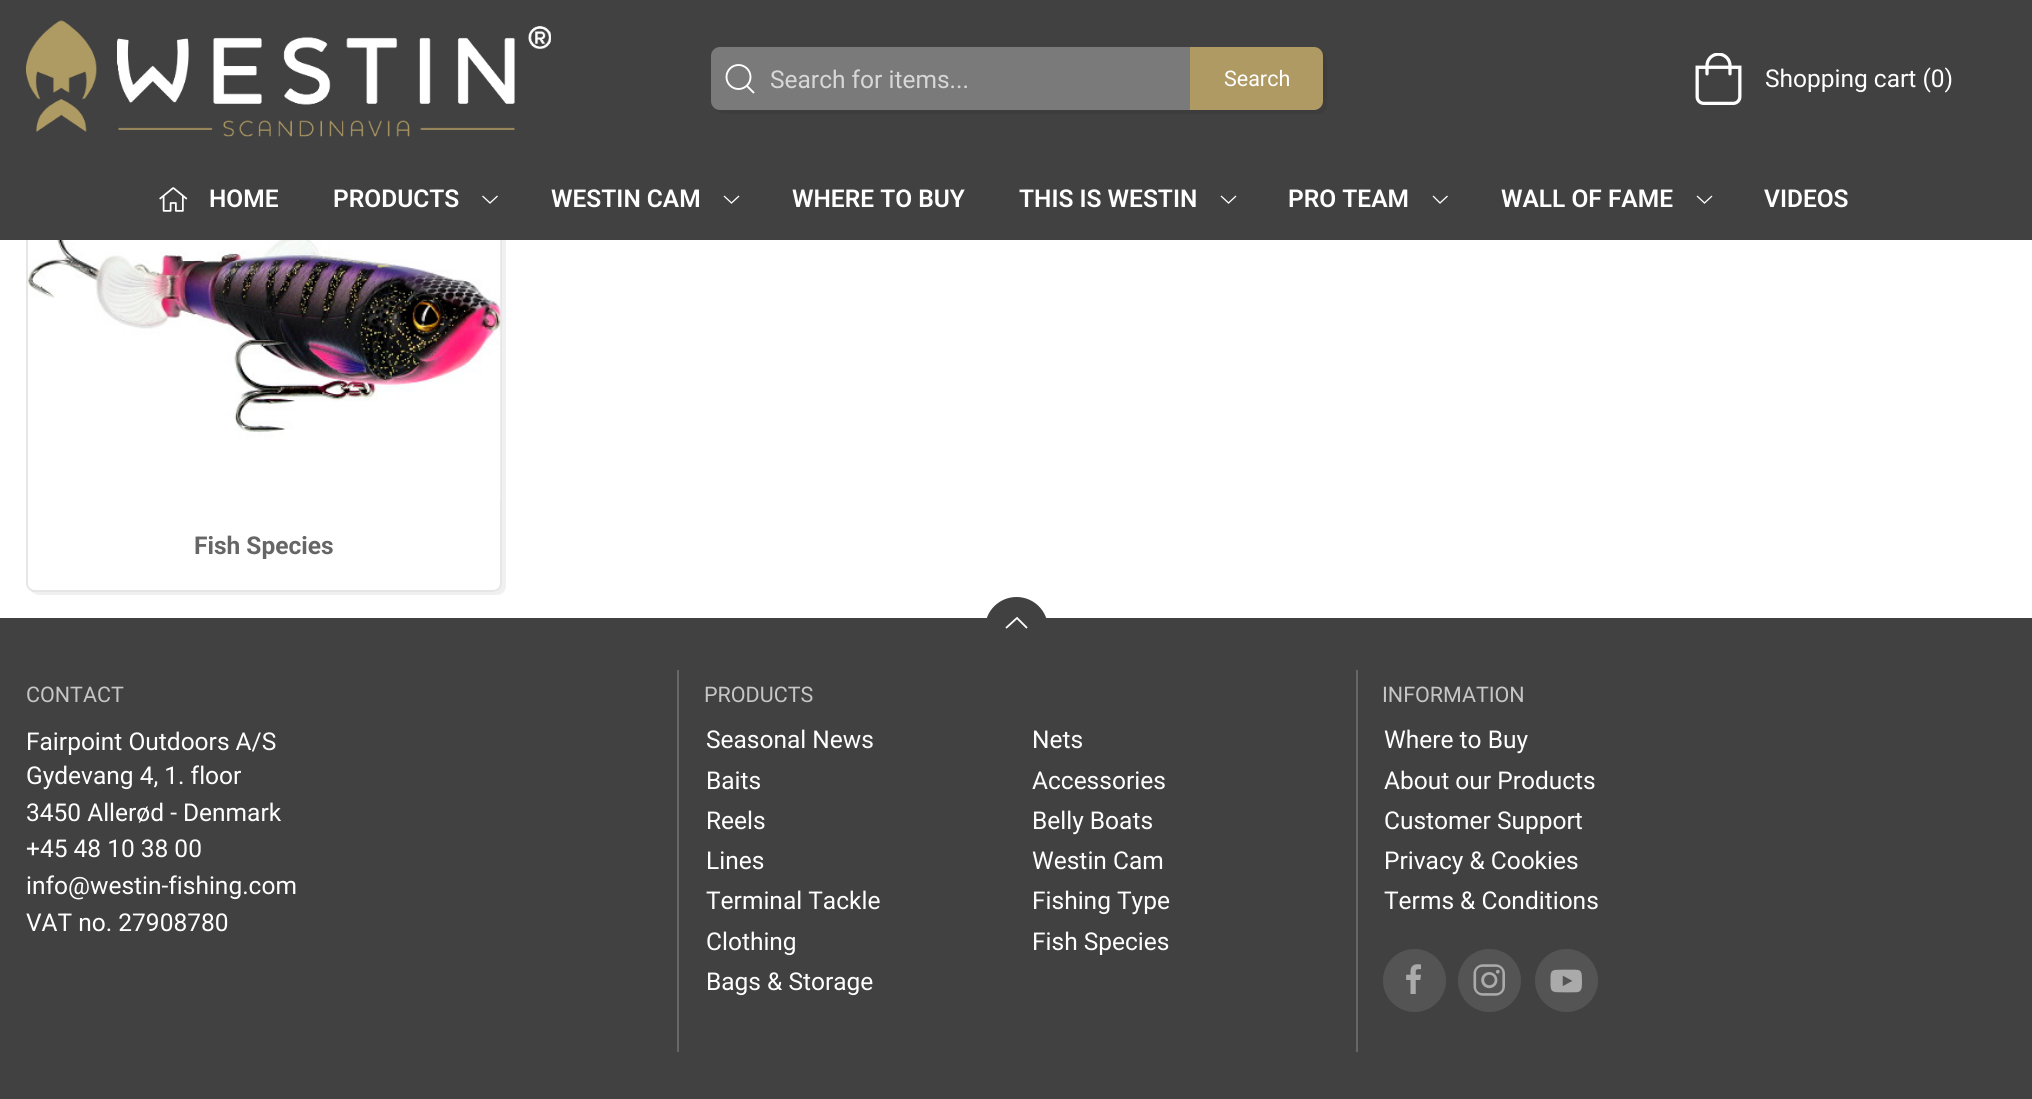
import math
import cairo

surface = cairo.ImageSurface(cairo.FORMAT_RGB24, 2032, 1099)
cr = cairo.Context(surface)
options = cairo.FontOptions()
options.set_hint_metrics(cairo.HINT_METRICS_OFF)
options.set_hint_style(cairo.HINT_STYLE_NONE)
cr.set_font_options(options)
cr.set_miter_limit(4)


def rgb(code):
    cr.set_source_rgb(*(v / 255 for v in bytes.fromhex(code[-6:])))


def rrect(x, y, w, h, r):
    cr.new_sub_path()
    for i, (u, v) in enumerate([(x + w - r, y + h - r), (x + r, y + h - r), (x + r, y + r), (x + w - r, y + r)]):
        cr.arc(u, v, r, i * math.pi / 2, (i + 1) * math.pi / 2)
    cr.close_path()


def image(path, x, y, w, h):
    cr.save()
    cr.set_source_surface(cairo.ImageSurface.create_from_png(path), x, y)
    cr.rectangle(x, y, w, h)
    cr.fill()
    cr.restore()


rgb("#ffffff")
cr.paint()
rgb("#f0f0f0")
cr.new_path()
cr.move_to(31, 591)
cr.curve_to(33, 593, 36, 595, 39, 595)
cr.line_to(497, 595)
cr.curve_to(502, 595, 506, 591, 506, 586)
cr.line_to(506, 158)
cr.curve_to(506, 155, 504, 152, 501, 150)
cr.line_to(502, 154)
cr.line_to(502, 583)
cr.curve_to(502, 588, 498, 592, 494, 592)
cr.line_to(35, 592)
cr.close_path()
cr.fill()
rrect(27, 146, 474, 445, 8)
cr.set_source_rgba(0, 0, 0, 0.1)
cr.stroke()
rgb("#424141")
cr.rectangle(0, 0, 2032, 240)
cr.fill()
image("img/1.png", 26, 20, 525, 117)
rgb("#3e3d3d")
cr.new_path()
cr.move_to(715, 109)
cr.curve_to(717, 112, 720, 114, 723, 114)
cr.line_to(1318, 114)
cr.curve_to(1323, 114, 1327, 110, 1327, 105)
cr.line_to(1327, 60)
cr.curve_to(1327, 56, 1325, 53, 1322, 52)
cr.curve_to(1323, 53, 1323, 55, 1323, 56)
cr.line_to(1323, 102)
cr.curve_to(1323, 106, 1319, 110, 1314, 110)
cr.line_to(719, 110)
cr.curve_to(718, 110, 716, 110, 715, 109)
cr.close_path()
cr.fill()
rgb("#7b7a7a")
cr.new_path()
cr.move_to(720, 47)
cr.line_to(1192, 47)
cr.line_to(1192, 110)
cr.line_to(720, 110)
cr.curve_to(715, 110, 711, 106, 711, 101)
cr.line_to(711, 56)
cr.curve_to(711, 51, 715, 47, 720, 47)
cr.close_path()
cr.fill()
cr.arc(738.5, 77, 12, 0, 2 * math.pi)
rgb("#ffffff")
cr.set_line_width(1.9)
cr.stroke()
cr.new_path()
cr.move_to(747, 86)
cr.line_to(754, 93)
cr.close_path()
cr.stroke()
rgb("#af9a64")
cr.new_path()
cr.move_to(1190, 47)
cr.line_to(1314, 47)
cr.curve_to(1319, 47, 1323, 51, 1323, 56)
cr.line_to(1323, 101)
cr.curve_to(1323, 106, 1319, 110, 1314, 110)
cr.line_to(1190, 110)
cr.close_path()
cr.fill()
image("img/2.png", 1695, 53, 47, 52)
image("img/3.png", 159, 187, 29, 25)
cr.new_path()
cr.move_to(497.5, 196)
cr.line_to(490, 203)
cr.line_to(482.5, 196)
rgb("#ffffff")
cr.set_line_width(1.3)
cr.stroke()
cr.new_path()
cr.move_to(739, 196)
cr.line_to(731.5, 203)
cr.line_to(724, 196)
cr.stroke()
cr.new_path()
cr.move_to(1236, 196)
cr.line_to(1228.5, 203)
cr.line_to(1221, 196)
cr.stroke()
cr.new_path()
cr.move_to(1447.5, 196)
cr.line_to(1440, 203)
cr.line_to(1433, 196)
cr.stroke()
cr.new_path()
cr.move_to(1712, 196)
cr.line_to(1704.5, 203)
cr.line_to(1697, 196)
cr.stroke()
image("img/4.png", 28, 240, 473, 260)
rgb("#424141")
cr.rectangle(0, 618, 2032, 481)
cr.fill()
cr.arc(1016.5, 628.5, 31.5, 0, 2 * math.pi)
cr.fill()
cr.new_path()
cr.move_to(1006, 628)
cr.line_to(1017, 618)
cr.line_to(1027, 628)
rgb("#ffffff")
cr.set_line_width(1.8)
cr.stroke()
rgb("#686767")
cr.rectangle(677, 670, 2, 382)
cr.fill()
cr.rectangle(1356, 670, 2, 382)
cr.fill()
rgb("#555454")
cr.arc(1414.5, 980.5, 31.5, 0, 2 * math.pi)
cr.fill()
image("img/5.png", 1406, 964, 15, 30)
cr.arc(1489.5, 980.5, 31.5, 0, 2 * math.pi)
cr.fill()
image("img/6.png", 1473, 964, 32, 32)
cr.arc(1566.5, 980.5, 31.5, 0, 2 * math.pi)
cr.fill()
image("img/7.png", 1550, 969, 32, 24)
cr.select_font_face("Roboto")
cr.set_font_size(24.5)
rgb("#d7d7d7")
cr.move_to(770, 88)
cr.show_text("Search for items...")
cr.set_font_size(21.5)
rgb("#ffffff")
cr.move_to(1224, 86)
cr.show_text("Search")
cr.set_font_size(24.5)
cr.move_to(1765, 87)
cr.show_text("Shopping cart (0)")
cr.select_font_face("Roboto SemiBold")
for x, y, s in [
    (209, 207, "HOME"),
    (333, 207, "PRODUCTS"),
    (551, 207, "WESTIN CAM"),
    (792, 207, "WHERE TO BUY"),
    (1019, 207, "THIS IS WESTIN"),
    (1288, 207, "PRO TEAM"),
    (1501, 207, "WALL OF FAME"),
    (1764, 207, "VIDEOS"),
]:
    cr.move_to(x, y)
    cr.show_text(s)
cr.select_font_face("Roboto", cairo.FONT_SLANT_NORMAL, cairo.FONT_WEIGHT_BOLD)
rgb("#666666")
cr.move_to(194, 554)
cr.show_text("Fish Species")
cr.select_font_face("Roboto")
cr.set_font_size(21.5)
rgb("#c6c6c6")
cr.move_to(26, 702)
cr.show_text("CONTACT")
cr.set_font_size(24.5)
rgb("#ffffff")
for x, y, s in [
    (26, 750, "Fairpoint Outdoors A/S"),
    (26, 784, "Gydevang 4, 1. floor"),
    (26, 821, "3450 Allerød - Denmark"),
    (26, 857, "+45 48 10 38 00"),
    (26, 894, "info@westin-fishing.com"),
    (26, 931, "VAT no. 27908780"),
]:
    cr.move_to(x, y)
    cr.show_text(s)
cr.set_font_size(21.5)
rgb("#c6c6c6")
cr.move_to(704, 702)
cr.show_text("PRODUCTS")
cr.set_font_size(24.5)
rgb("#ffffff")
for x, y, s in [
    (706, 748, "Seasonal News"),
    (706, 789, "Baits"),
    (706, 829, "Reels"),
    (706, 869, "Lines"),
    (706, 909, "Terminal Tackle"),
    (706, 950, "Clothing"),
    (706, 990, "Bags & Storage"),
    (1032, 748, "Nets"),
    (1032, 789, "Accessories"),
    (1032, 829, "Belly Boats"),
    (1032, 869, "Westin Cam"),
    (1032, 909, "Fishing Type"),
    (1032, 950, "Fish Species"),
]:
    cr.move_to(x, y)
    cr.show_text(s)
cr.set_font_size(21.5)
rgb("#c6c6c6")
cr.move_to(1382, 702)
cr.show_text("INFORMATION")
cr.set_font_size(24.5)
rgb("#ffffff")
for x, y, s in [
    (1384, 748, "Where to Buy"),
    (1384, 789, "About our Products"),
    (1384, 829, "Customer Support"),
    (1384, 869, "Privacy & Cookies"),
    (1384, 909, "Terms & Conditions"),
]:
    cr.move_to(x, y)
    cr.show_text(s)
surface.write_to_png("page.png")
